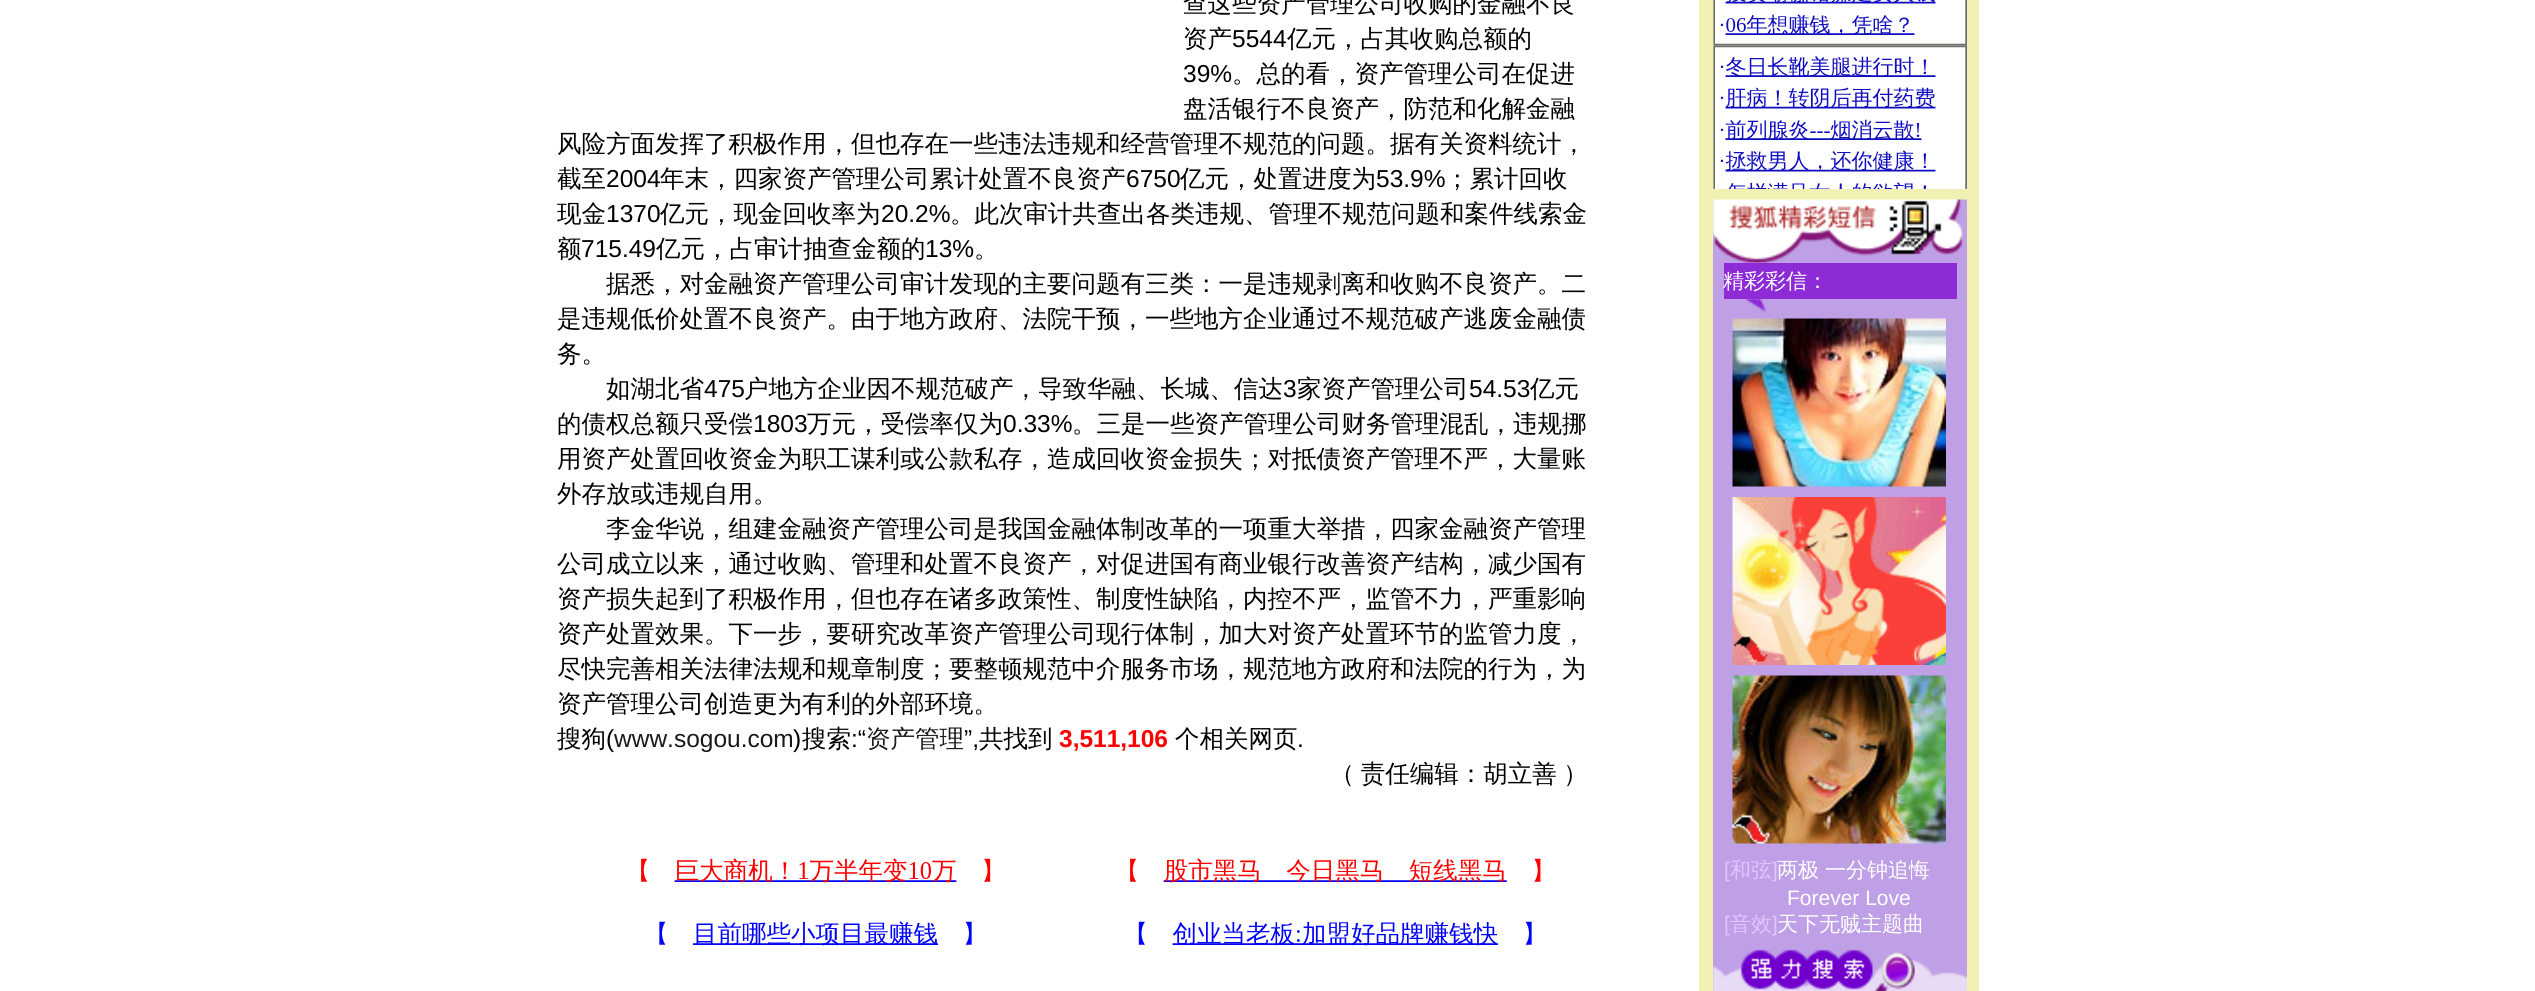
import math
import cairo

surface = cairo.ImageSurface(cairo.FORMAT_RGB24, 2535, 991)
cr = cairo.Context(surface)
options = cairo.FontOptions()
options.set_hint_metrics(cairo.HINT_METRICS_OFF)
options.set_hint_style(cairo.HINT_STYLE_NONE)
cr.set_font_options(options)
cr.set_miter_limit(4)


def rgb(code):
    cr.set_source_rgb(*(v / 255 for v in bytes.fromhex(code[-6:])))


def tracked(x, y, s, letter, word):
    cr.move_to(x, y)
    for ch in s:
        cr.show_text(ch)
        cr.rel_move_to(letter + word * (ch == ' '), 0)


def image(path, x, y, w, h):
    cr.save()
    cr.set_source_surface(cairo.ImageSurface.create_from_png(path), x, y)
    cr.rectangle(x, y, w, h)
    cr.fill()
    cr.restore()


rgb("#ffffff")
cr.paint()
image("img/1.png", 641, 858, 350, 88)
image("img/2.png", 1130, 858, 411, 88)
rgb("#f1f1b3")
cr.rectangle(1699, 0, 280, 991)
cr.fill()
image("img/3.png", 1713, 0, 254, 189)
rgb("#bfa0e6")
cr.rectangle(1713, 200, 254, 791)
cr.fill()
image("img/4.png", 1713, 199, 254, 64)
rgb("#8d2bd7")
cr.rectangle(1724, 263, 233, 36)
cr.fill()
image("img/5.png", 1746, 299, 21, 13)
image("img/6.png", 1732, 318, 214, 169)
image("img/7.png", 1732, 497, 214, 168)
image("img/8.png", 1732, 675, 214, 169)
image("img/9.png", 1713, 949, 254, 42)
cr.select_font_face("WenQuanYi Zen Hei Medium")
cr.set_font_size(24.5)
rgb("#000000")
cr.move_to(1183, 12)
cr.show_text("查这些资产管理公司收购的金融不良")
cr.move_to(1183, 47)
cr.show_text("资产")
cr.select_font_face("Liberation Sans")
cr.move_to(1232, 47)
cr.show_text("5544")
cr.select_font_face("WenQuanYi Zen Hei Medium")
cr.move_to(1287, 47)
cr.show_text("亿元，占其收购总额的")
cr.select_font_face("Liberation Sans")
cr.move_to(1183, 82)
cr.show_text("39%")
cr.select_font_face("WenQuanYi Zen Hei Medium")
for x, y, s in [
    (1232, 82, "。总的看，资产管理公司在促进"),
    (1183, 117, "盘活银行不良资产，防范和化解金融"),
    (557, 152, "风险方面发挥了积极作用，但也存在一些违法违规和经营管理不规范的问题。据有关资料统计，"),
    (557, 187, "截至"),
]:
    cr.move_to(x, y)
    cr.show_text(s)
cr.select_font_face("Liberation Sans")
cr.move_to(606, 187)
cr.show_text("2004")
cr.select_font_face("WenQuanYi Zen Hei Medium")
cr.move_to(660, 187)
cr.show_text("年末，四家资产管理公司累计处置不良资产")
cr.select_font_face("Liberation Sans")
cr.move_to(1126, 187)
cr.show_text("6750")
cr.select_font_face("WenQuanYi Zen Hei Medium")
cr.move_to(1180, 187)
cr.show_text("亿元，处置进度为")
cr.select_font_face("Liberation Sans")
cr.move_to(1376, 187)
cr.show_text("53.9%")
cr.select_font_face("WenQuanYi Zen Hei Medium")
cr.move_to(1445, 187)
cr.show_text("；累计回收")
cr.move_to(557, 222)
cr.show_text("现金")
cr.select_font_face("Liberation Sans")
cr.move_to(606, 222)
cr.show_text("1370")
cr.select_font_face("WenQuanYi Zen Hei Medium")
cr.move_to(660, 222)
cr.show_text("亿元，现金回收率为")
cr.select_font_face("Liberation Sans")
cr.move_to(881, 222)
cr.show_text("20.2%")
cr.select_font_face("WenQuanYi Zen Hei Medium")
cr.move_to(950, 222)
cr.show_text("。此次审计共查出各类违规、管理不规范问题和案件线索金")
cr.move_to(557, 257)
cr.show_text("额")
cr.select_font_face("Liberation Sans")
cr.move_to(581, 257)
cr.show_text("715.49")
cr.select_font_face("WenQuanYi Zen Hei Medium")
cr.move_to(656, 257)
cr.show_text("亿元，占审计抽查金额的")
cr.select_font_face("Liberation Sans")
cr.move_to(925, 257)
cr.show_text("13%")
cr.select_font_face("WenQuanYi Zen Hei Medium")
for x, y, s in [
    (974, 257, "。"),
    (606, 292, "据悉，对金融资产管理公司审计发现的主要问题有三类：一是违规剥离和收购不良资产。二"),
    (557, 327, "是违规低价处置不良资产。由于地方政府、法院干预，一些地方企业通过不规范破产逃废金融债"),
    (557, 362, "务。"),
    (606, 397, "如湖北省"),
]:
    cr.move_to(x, y)
    cr.show_text(s)
cr.select_font_face("Liberation Sans")
cr.move_to(704, 397)
cr.show_text("475")
cr.select_font_face("WenQuanYi Zen Hei Medium")
cr.move_to(744, 397)
cr.show_text("户地方企业因不规范破产，导致华融、长城、信达")
cr.select_font_face("Liberation Sans")
cr.move_to(1283, 397)
cr.show_text("3")
cr.select_font_face("WenQuanYi Zen Hei Medium")
cr.move_to(1297, 397)
cr.show_text("家资产管理公司")
cr.select_font_face("Liberation Sans")
cr.move_to(1469, 397)
cr.show_text("54.53")
cr.select_font_face("WenQuanYi Zen Hei Medium")
cr.move_to(1530, 397)
cr.show_text("亿元")
cr.move_to(557, 432)
cr.show_text("的债权总额只受偿")
cr.select_font_face("Liberation Sans")
cr.move_to(753, 432)
cr.show_text("1803")
cr.select_font_face("WenQuanYi Zen Hei Medium")
cr.move_to(807, 432)
cr.show_text("万元，受偿率仅为")
cr.select_font_face("Liberation Sans")
cr.move_to(1003, 432)
cr.show_text("0.33%")
cr.select_font_face("WenQuanYi Zen Hei Medium")
for x, y, s in [
    (1072, 432, "。三是一些资产管理公司财务管理混乱，违规挪"),
    (557, 467, "用资产处置回收资金为职工谋利或公款私存，造成回收资金损失；对抵债资产管理不严，大量账"),
    (557, 502, "外存放或违规自用。"),
    (606, 537, "李金华说，组建金融资产管理公司是我国金融体制改革的一项重大举措，四家金融资产管理"),
    (557, 572, "公司成立以来，通过收购、管理和处置不良资产，对促进国有商业银行改善资产结构，减少国有"),
    (557, 607, "资产损失起到了积极作用，但也存在诸多政策性、制度性缺陷，内控不严，监管不力，严重影响"),
    (557, 642, "资产处置效果。下一步，要研究改革资产管理公司现行体制，加大对资产处置环节的监管力度，"),
    (557, 677, "尽快完善相关法律法规和规章制度；要整顿规范中介服务市场，规范地方政府和法院的行为，为"),
    (557, 712, "资产管理公司创造更为有利的外部环境。"),
    (557, 747, "搜狗"),
]:
    cr.move_to(x, y)
    cr.show_text(s)
cr.select_font_face("Liberation Sans")
cr.move_to(606, 747)
cr.show_text("(")
rgb("#191919")
cr.move_to(614, 747)
cr.show_text("www.sogou.com")
rgb("#000000")
cr.move_to(793, 747)
cr.show_text(")")
cr.select_font_face("WenQuanYi Zen Hei Medium")
cr.move_to(802, 747)
cr.show_text("搜索")
cr.select_font_face("Liberation Sans")
cr.move_to(851, 747)
cr.show_text(":“")
cr.select_font_face("WenQuanYi Zen Hei Medium")
rgb("#191919")
cr.move_to(866, 747)
cr.show_text("资产管理")
cr.select_font_face("Liberation Sans")
rgb("#000000")
cr.move_to(964, 747)
cr.show_text("”,")
cr.select_font_face("WenQuanYi Zen Hei Medium")
cr.move_to(979, 747)
cr.show_text("共找到")
cr.select_font_face("Liberation Sans", cairo.FONT_SLANT_NORMAL, cairo.FONT_WEIGHT_BOLD)
rgb("#ff0000")
cr.move_to(1059, 747)
cr.show_text("3,511,106")
cr.select_font_face("WenQuanYi Zen Hei Medium")
rgb("#000000")
cr.move_to(1175, 747)
cr.show_text("个相关网页")
cr.select_font_face("Liberation Sans")
cr.move_to(1297, 747)
cr.show_text(".")
cr.select_font_face("WenQuanYi Zen Hei Medium")
tracked(1330, 782, "（ 责任编辑：胡立善 ）", 0, -1)
cr.set_font_size(21)
rgb("#ffffff")
cr.move_to(1723, 288)
cr.show_text("精彩彩信：")
cr.select_font_face("Liberation Sans")
rgb("#e0c5ff")
cr.move_to(1724, 877)
cr.show_text("[")
cr.select_font_face("WenQuanYi Zen Hei Medium")
cr.move_to(1730, 877)
cr.show_text("和弦")
cr.select_font_face("Liberation Sans")
cr.move_to(1772, 877)
cr.show_text("]")
cr.select_font_face("WenQuanYi Zen Hei Medium")
rgb("#ffffff")
cr.move_to(1777, 877)
cr.show_text("两极")
cr.move_to(1825, 877)
cr.show_text("一分钟追悔")
cr.select_font_face("Liberation Sans")
cr.move_to(1787, 905)
cr.show_text("Forever Love")
rgb("#e0c5ff")
cr.move_to(1724, 931)
cr.show_text("[")
cr.select_font_face("WenQuanYi Zen Hei Medium")
cr.move_to(1730, 931)
cr.show_text("音效")
cr.select_font_face("Liberation Sans")
cr.move_to(1772, 931)
cr.show_text("]")
cr.select_font_face("WenQuanYi Zen Hei Medium")
rgb("#ffffff")
cr.move_to(1777, 931)
cr.show_text("天下无贼主题曲")
surface.write_to_png("page.png")
